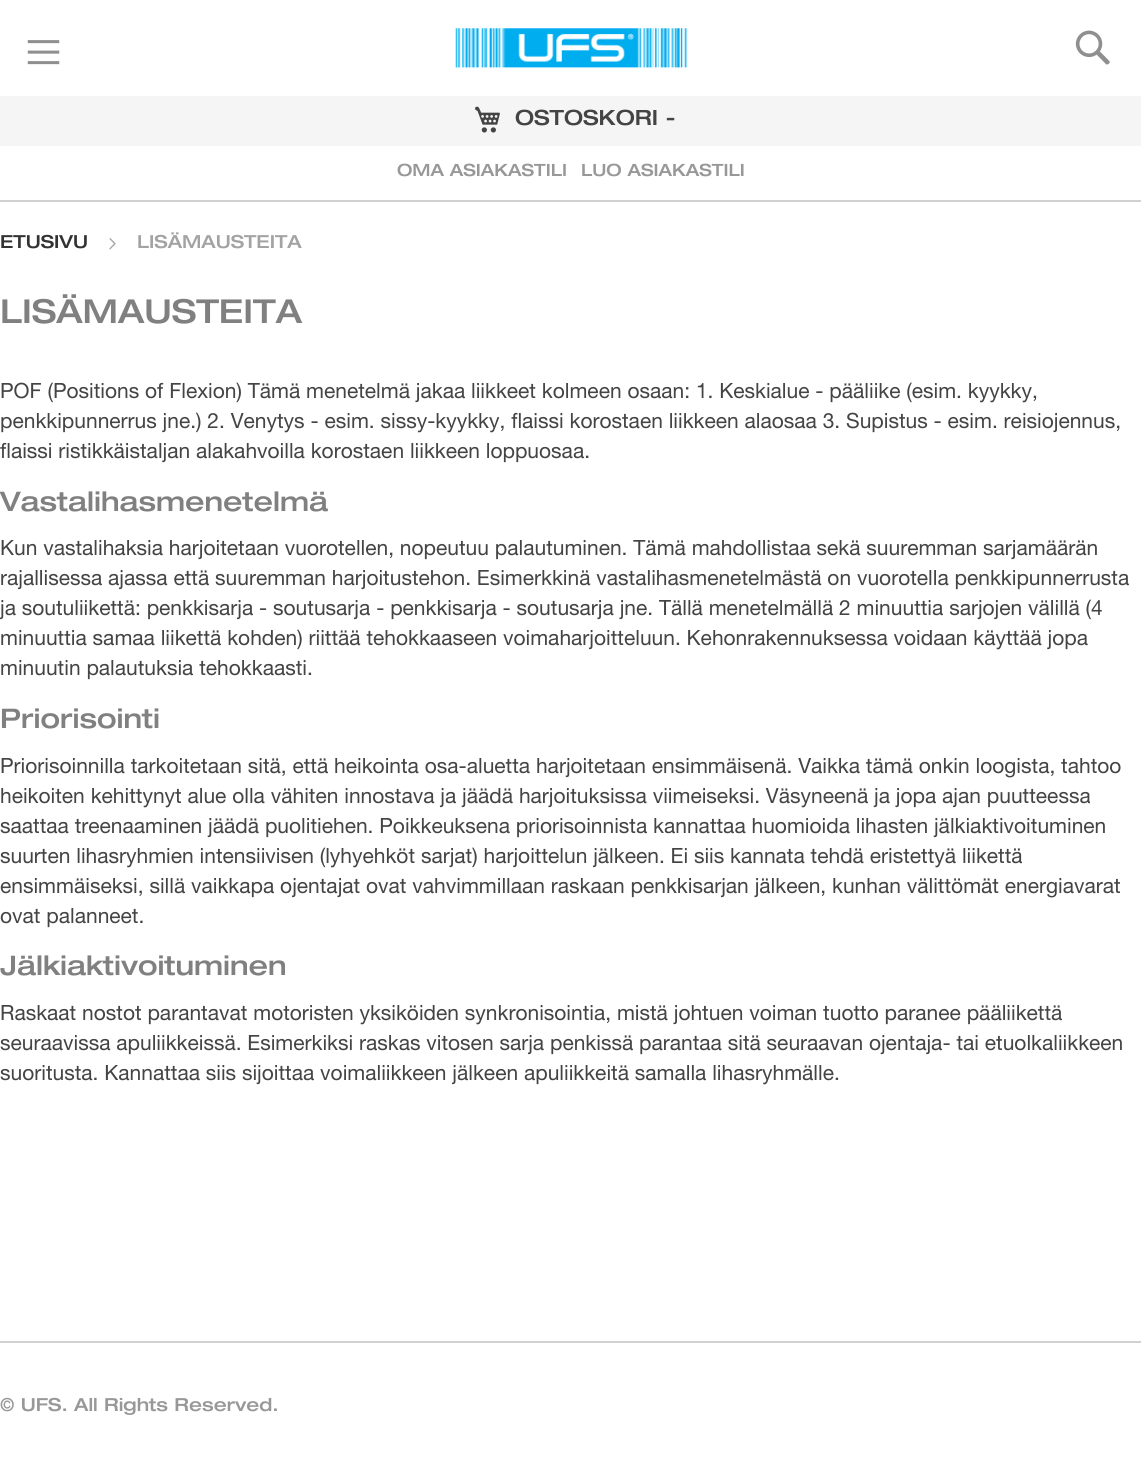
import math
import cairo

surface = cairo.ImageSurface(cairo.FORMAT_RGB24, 1141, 1458)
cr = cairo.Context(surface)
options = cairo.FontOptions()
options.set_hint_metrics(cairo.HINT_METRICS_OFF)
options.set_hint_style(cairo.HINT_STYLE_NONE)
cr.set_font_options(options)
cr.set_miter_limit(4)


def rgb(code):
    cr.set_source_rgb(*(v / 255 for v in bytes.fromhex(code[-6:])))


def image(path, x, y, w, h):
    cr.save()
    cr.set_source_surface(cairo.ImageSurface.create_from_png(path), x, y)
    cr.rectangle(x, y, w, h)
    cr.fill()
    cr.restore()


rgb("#ffffff")
cr.paint()
rgb("#d1d1d1")
cr.rectangle(0, 200, 1141, 2)
cr.fill()
image("img/1.png", 27, 40, 33, 25)
image("img/2.png", 455, 28, 233, 41)
image("img/3.png", 1075, 30, 35, 35)
rgb("#f5f5f5")
cr.rectangle(0, 96, 1141, 50)
cr.fill()
image("img/4.png", 475, 106, 25, 27)
image("img/5.png", 109, 238, 7, 12)
rgb("#d1d1d1")
cr.rectangle(0, 1341, 1141, 2)
cr.fill()
cr.select_font_face("Helvetica Neue Medium")
cr.set_font_size(21)
rgb("#444444")
cr.move_to(515, 125)
cr.show_text("OSTOSKORI -")
cr.set_font_size(16.9)
rgb("#989898")
cr.move_to(397, 176)
cr.show_text("OMA ASIAKASTILI")
cr.move_to(581, 176)
cr.show_text("LUO ASIAKASTILI")
cr.set_font_size(18)
rgb("#333333")
cr.move_to(0, 248)
cr.show_text("ETUSIVU")
rgb("#a3a3a3")
cr.move_to(137, 248)
cr.show_text("LISÄMAUSTEITA")
cr.set_font_size(33)
rgb("#808080")
cr.move_to(0, 323)
cr.show_text("LISÄMAUSTEITA")
cr.select_font_face("Helvetica Neue")
cr.set_font_size(21)
rgb("#444444")
for x, y, s in [
    (0, 398, "POF (Positions of Flexion) Tämä menetelmä jakaa liikkeet kolmeen osaan: 1. Keskialue - pääliike (esim. kyykky,"),
    (0, 428, "penkkipunnerrus jne.) 2. Venytys - esim. sissy-kyykky, flaissi korostaen liikkeen alaosaa 3. Supistus - esim. reisiojennus,"),
    (0, 458, "flaissi ristikkäistaljan alakahvoilla korostaen liikkeen loppuosaa."),
]:
    cr.move_to(x, y)
    cr.show_text(s)
cr.select_font_face("Helvetica Neue Medium")
cr.set_font_size(27)
rgb("#808080")
cr.move_to(0, 511)
cr.show_text("Vastalihasmenetelmä")
cr.select_font_face("Helvetica Neue")
cr.set_font_size(21)
rgb("#444444")
for x, y, s in [
    (0, 555, "Kun vastalihaksia harjoitetaan vuorotellen, nopeutuu palautuminen. Tämä mahdollistaa sekä suuremman sarjamäärän"),
    (0, 585, "rajallisessa ajassa että suuremman harjoitustehon. Esimerkkinä vastalihasmenetelmästä on vuorotella penkkipunnerrusta"),
    (0, 615, "ja soutuliikettä: penkkisarja - soutusarja - penkkisarja - soutusarja jne. Tällä menetelmällä 2 minuuttia sarjojen välillä (4"),
    (0, 645, "minuuttia samaa liikettä kohden) riittää tehokkaaseen voimaharjoitteluun. Kehonrakennuksessa voidaan käyttää jopa"),
    (0, 675, "minuutin palautuksia tehokkaasti."),
]:
    cr.move_to(x, y)
    cr.show_text(s)
cr.select_font_face("Helvetica Neue Medium")
cr.set_font_size(27)
rgb("#808080")
cr.move_to(0, 728)
cr.show_text("Priorisointi")
cr.select_font_face("Helvetica Neue")
cr.set_font_size(21)
rgb("#444444")
for x, y, s in [
    (0, 773, "Priorisoinnilla tarkoitetaan sitä, että heikointa osa-aluetta harjoitetaan ensimmäisenä. Vaikka tämä onkin loogista, tahtoo"),
    (0, 803, "heikoiten kehittynyt alue olla vähiten innostava ja jäädä harjoituksissa viimeiseksi. Väsyneenä ja jopa ajan puutteessa"),
    (0, 833, "saattaa treenaaminen jäädä puolitiehen. Poikkeuksena priorisoinnista kannattaa huomioida lihasten jälkiaktivoituminen"),
    (0, 863, "suurten lihasryhmien intensiivisen (lyhyehköt sarjat) harjoittelun jälkeen. Ei siis kannata tehdä eristettyä liikettä"),
    (0, 893, "ensimmäiseksi, sillä vaikkapa ojentajat ovat vahvimmillaan raskaan penkkisarjan jälkeen, kunhan välittömät energiavarat"),
    (0, 923, "ovat palanneet."),
]:
    cr.move_to(x, y)
    cr.show_text(s)
cr.select_font_face("Helvetica Neue Medium")
cr.set_font_size(27)
rgb("#808080")
cr.move_to(0, 975)
cr.show_text("Jälkiaktivoituminen")
cr.select_font_face("Helvetica Neue")
cr.set_font_size(21)
rgb("#444444")
for x, y, s in [
    (0, 1020, "Raskaat nostot parantavat motoristen yksiköiden synkronisointia, mistä johtuen voiman tuotto paranee pääliikettä"),
    (0, 1050, "seuraavissa apuliikkeissä. Esimerkiksi raskas vitosen sarja penkissä parantaa sitä seuraavan ojentaja- tai etuolkaliikkeen"),
    (0, 1080, "suoritusta. Kannattaa siis sijoittaa voimaliikkeen jälkeen apuliikkeitä samalla lihasryhmälle."),
]:
    cr.move_to(x, y)
    cr.show_text(s)
cr.select_font_face("Helvetica Neue Medium")
cr.set_font_size(18)
rgb("#989898")
cr.move_to(0, 1411)
cr.show_text("© UFS. All Rights Reserved.")
surface.write_to_png("page.png")
